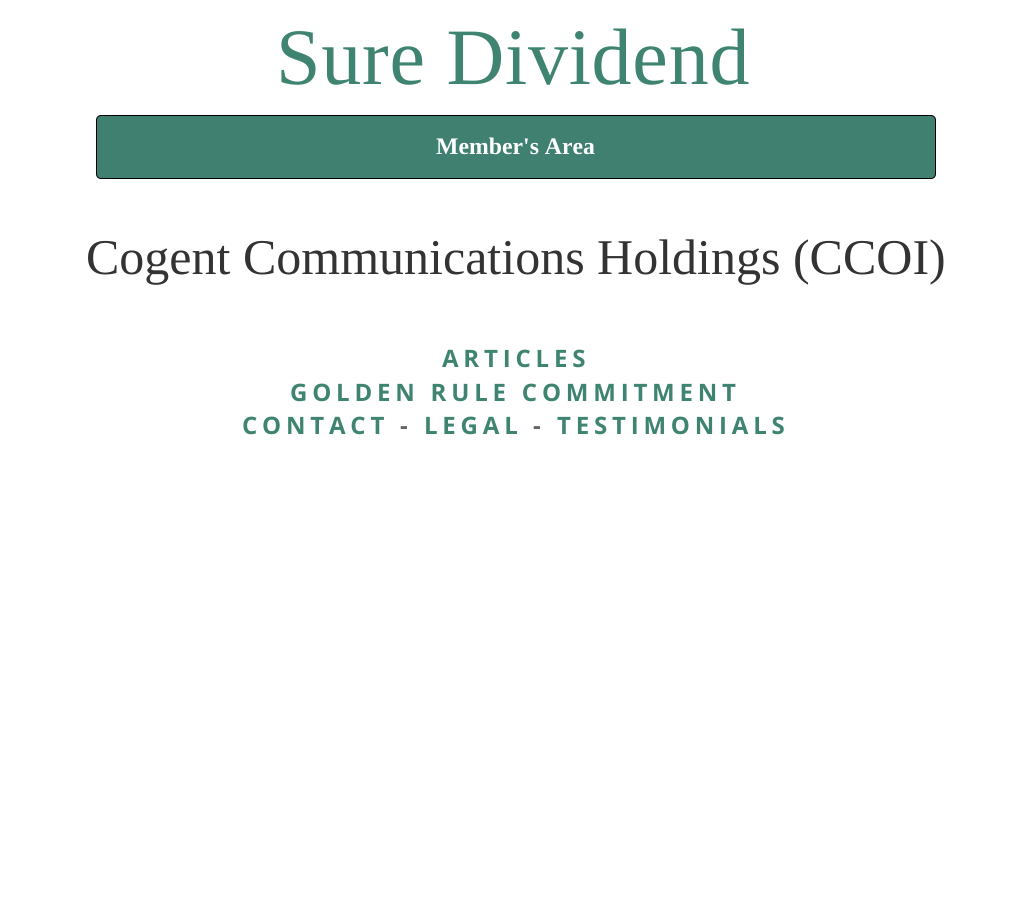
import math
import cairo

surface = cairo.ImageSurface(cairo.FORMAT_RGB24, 1031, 908)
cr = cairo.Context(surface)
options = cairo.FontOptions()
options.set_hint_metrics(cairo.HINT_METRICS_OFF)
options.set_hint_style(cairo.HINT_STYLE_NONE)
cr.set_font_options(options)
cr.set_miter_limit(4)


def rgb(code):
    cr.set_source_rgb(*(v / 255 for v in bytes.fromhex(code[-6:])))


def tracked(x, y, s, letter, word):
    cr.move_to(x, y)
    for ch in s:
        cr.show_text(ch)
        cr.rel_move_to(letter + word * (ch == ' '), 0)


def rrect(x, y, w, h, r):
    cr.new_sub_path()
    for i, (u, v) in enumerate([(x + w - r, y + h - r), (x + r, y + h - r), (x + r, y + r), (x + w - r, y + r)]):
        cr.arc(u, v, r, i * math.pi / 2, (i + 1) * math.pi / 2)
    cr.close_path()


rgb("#ffffff")
cr.paint()
rgb("#3f8071")
rrect(96.5, 115.5, 839, 63, 4.5)
cr.fill_preserve()
rgb("#000000")
cr.set_line_width(1)
cr.stroke()
cr.select_font_face("Liberation Serif")
cr.set_font_size(80)
rgb("#3f8471")
tracked(276, 84, "Sure Dividend", 0.75, 0)
cr.select_font_face("Liberation Serif", cairo.FONT_SLANT_NORMAL, cairo.FONT_WEIGHT_BOLD)
cr.set_font_size(23.75)
rgb("#ffffff")
cr.move_to(436, 154)
cr.show_text("Member's Area")
cr.select_font_face("Liberation Serif")
cr.set_font_size(50)
rgb("#333333")
cr.move_to(86, 274)
cr.show_text("Cogent Communications Holdings (CCOI)")
cr.select_font_face("Open Sans", cairo.FONT_SLANT_NORMAL, cairo.FONT_WEIGHT_BOLD)
cr.set_font_size(24)
rgb("#3f8471")
for x, y, s in [
    (442, 367, "ARTICLES"),
    (290, 401, "GOLDEN RULE COMMITMENT"),
    (242, 434, "CONTACT"),
]:
    tracked(x, y, s, 4.8, 0)
rgb("#666666")
tracked(400, 434, "-", 4.8, 0)
rgb("#3f8471")
tracked(424, 434, "LEGAL", 4.8, 0)
rgb("#666666")
tracked(533, 434, "-", 4.8, 0)
rgb("#3f8471")
tracked(557, 434, "TESTIMONIALS", 4.8, 0)
surface.write_to_png("page.png")
